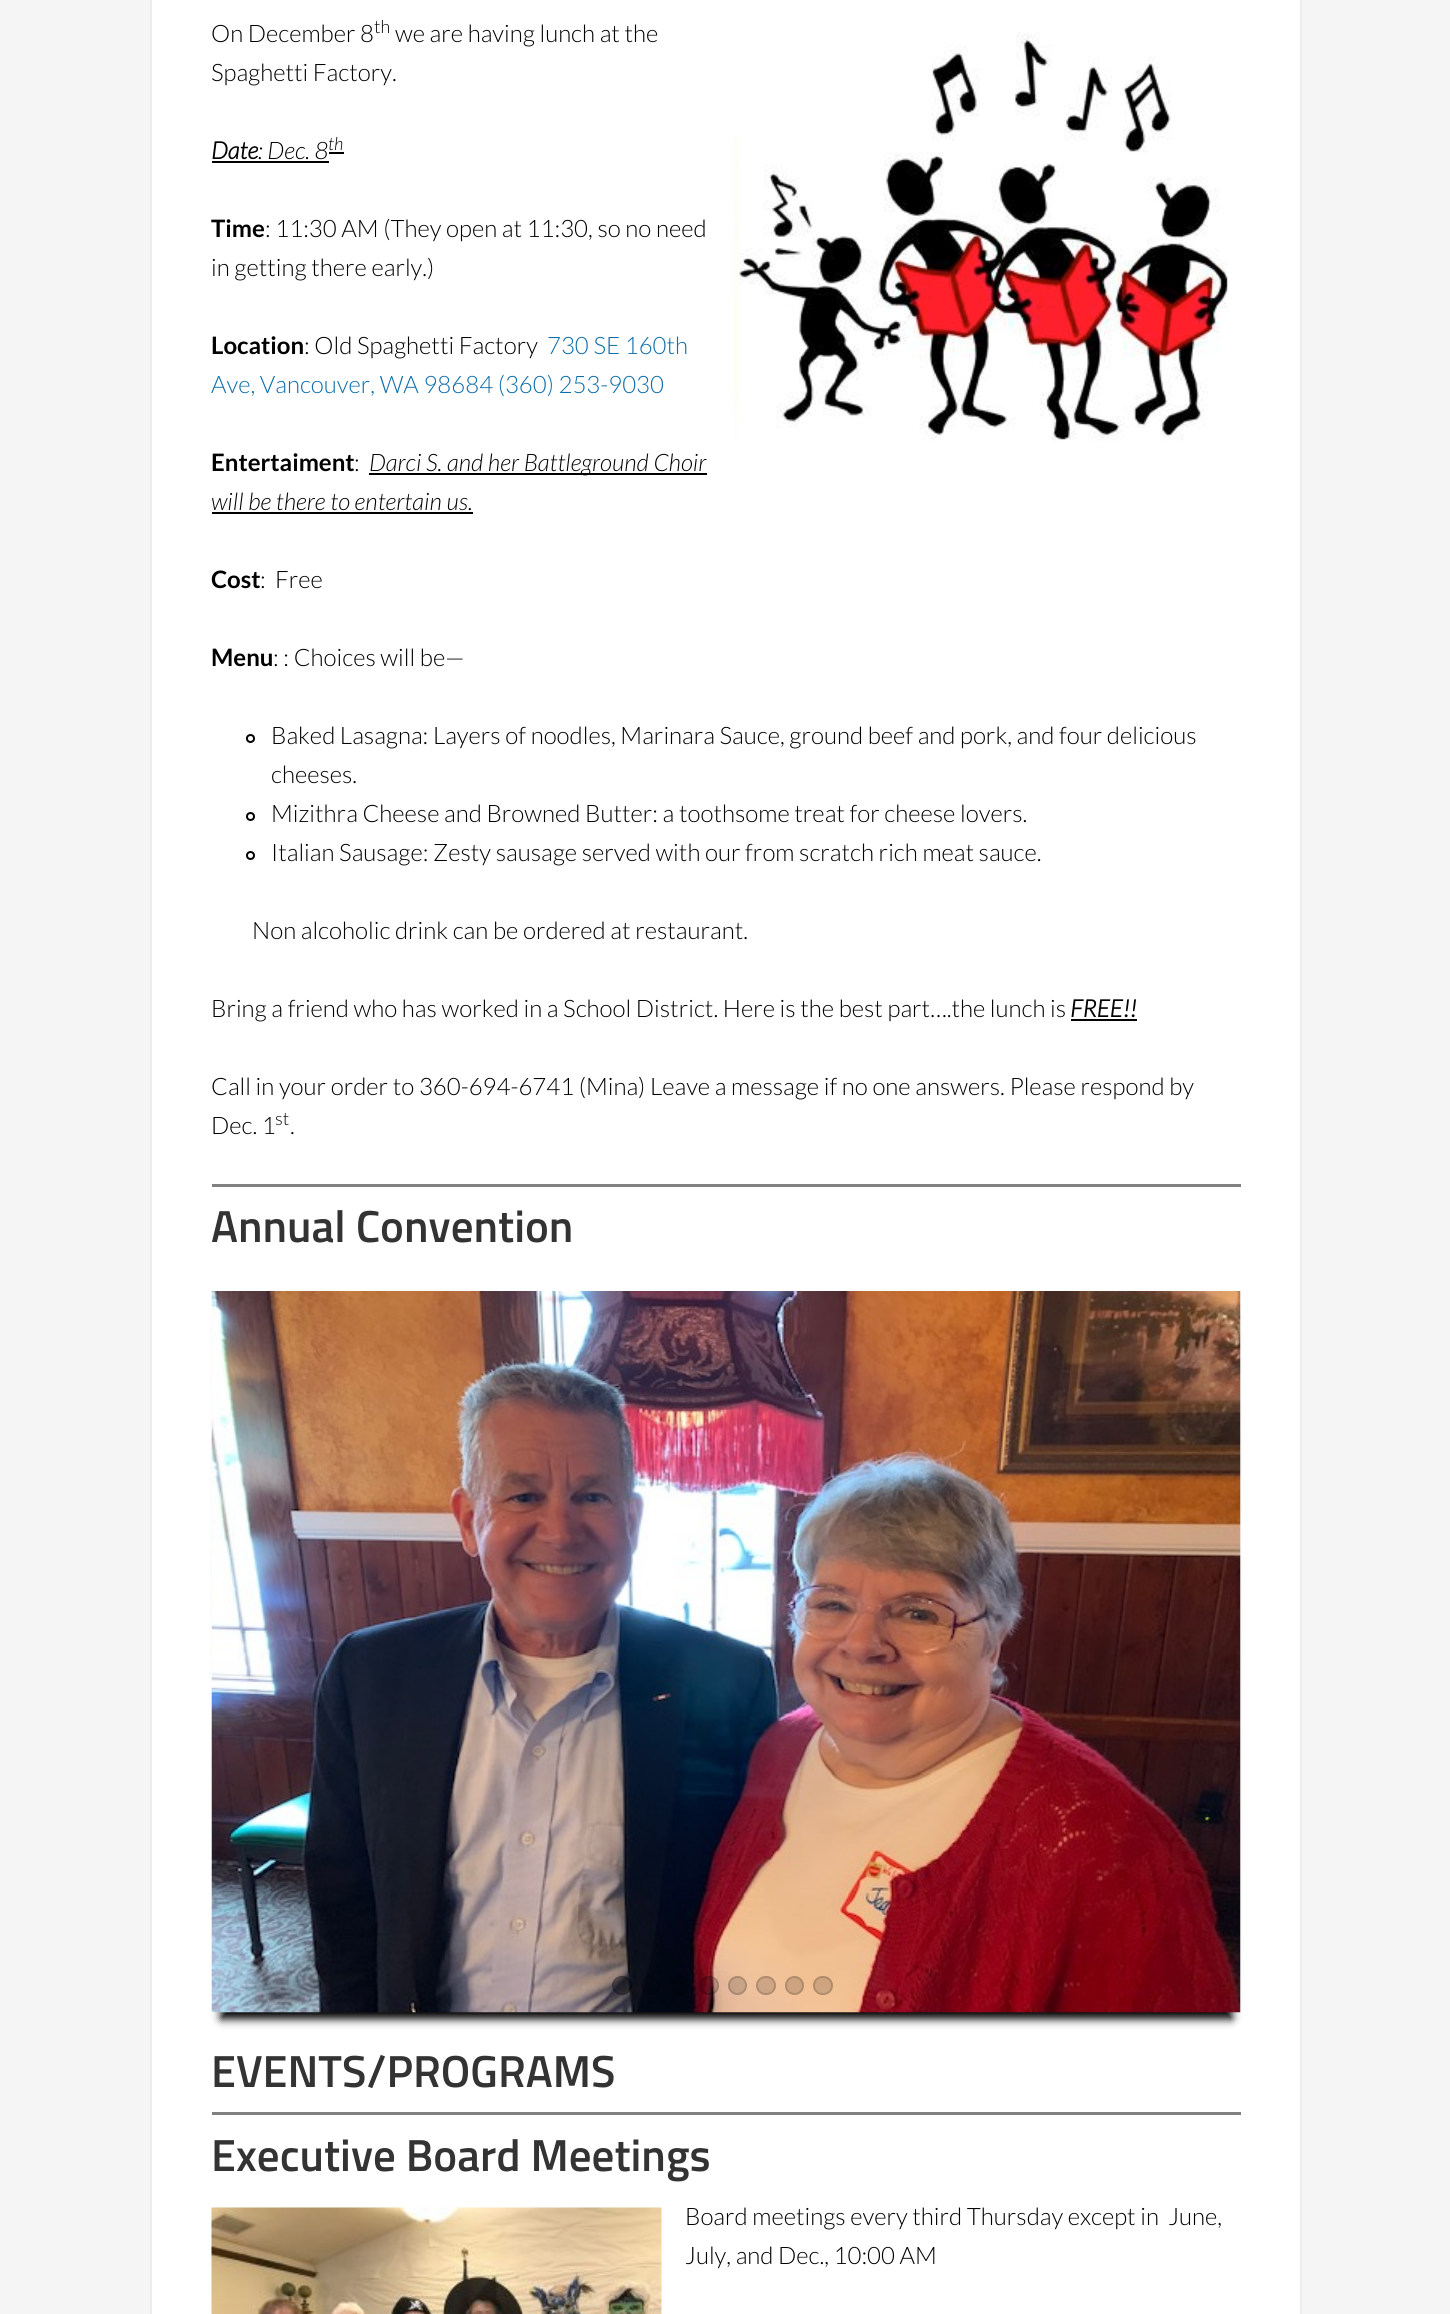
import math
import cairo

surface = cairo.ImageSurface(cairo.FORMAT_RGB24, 1450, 2314)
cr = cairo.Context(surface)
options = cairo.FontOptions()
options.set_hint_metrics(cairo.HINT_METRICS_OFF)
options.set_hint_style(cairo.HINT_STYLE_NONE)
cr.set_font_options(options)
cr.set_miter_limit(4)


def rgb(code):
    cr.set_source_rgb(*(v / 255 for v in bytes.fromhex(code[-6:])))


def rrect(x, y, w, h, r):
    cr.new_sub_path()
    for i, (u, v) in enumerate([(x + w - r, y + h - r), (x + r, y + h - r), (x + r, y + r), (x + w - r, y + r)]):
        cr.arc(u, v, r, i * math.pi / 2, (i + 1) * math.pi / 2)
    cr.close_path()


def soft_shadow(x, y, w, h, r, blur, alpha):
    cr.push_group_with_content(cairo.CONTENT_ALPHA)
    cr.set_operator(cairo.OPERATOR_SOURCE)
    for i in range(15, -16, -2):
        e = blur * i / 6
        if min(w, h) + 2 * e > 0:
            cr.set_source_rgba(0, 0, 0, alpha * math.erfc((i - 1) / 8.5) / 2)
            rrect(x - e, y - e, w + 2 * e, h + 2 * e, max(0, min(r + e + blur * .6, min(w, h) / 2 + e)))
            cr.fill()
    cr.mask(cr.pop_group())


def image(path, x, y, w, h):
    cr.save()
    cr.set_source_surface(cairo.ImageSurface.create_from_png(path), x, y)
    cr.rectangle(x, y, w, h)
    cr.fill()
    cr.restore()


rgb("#f5f5f5")
cr.paint()
rgb("#ffffff")
cr.rectangle(151, -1, 1150, 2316)
cr.fill_preserve()
rgb("#ececec")
cr.stroke()
image("img/1.png", 733, 32, 495, 409)
for x, y, w, h, color in [
    (212, 161, 117, 2, "#000000"),
    (329, 152, 15, 2, "#000000"),
    (369, 473, 338, 2, "#000000"),
    (212, 512, 261, 2, "#000000"),
]:
    rgb(color)
    cr.rectangle(x, y, w, h)
    cr.fill()
cr.arc(250.5, 738.5, 3.5, 0, 2 * math.pi)
cr.stroke()
cr.arc(250.5, 816.5, 3.5, 0, 2 * math.pi)
cr.stroke()
cr.arc(250.5, 855.5, 3.5, 0, 2 * math.pi)
cr.stroke()
cr.rectangle(1071, 1019, 66, 2)
cr.fill()
rgb("#808080")
cr.rectangle(212, 1184, 1029, 3)
cr.fill()
rgb("#000000")
soft_shadow(221, 1316, 1011, 703, 0, 4.5, 1)
image("img/2.png", 211, 1291, 1030, 722)
cr.set_source_rgba(0, 0, 0, 0.3)
rrect(612, 1976, 20, 19, 9.5)
cr.fill()
rrect(613, 1977, 18, 17, 8.5)
cr.set_source_rgba(0, 0, 0, 0.15)
cr.stroke()
cr.arc(650.5, 1985.5, 9.5, 0, 2 * math.pi)
cr.fill()
cr.arc(650.5, 1985.5, 8.5, 0, 2 * math.pi)
cr.stroke()
cr.arc(680.5, 1985.5, 9.5, 0, 2 * math.pi)
cr.fill()
cr.arc(680.5, 1985.5, 8.5, 0, 2 * math.pi)
cr.stroke()
rrect(699, 1976, 20, 19, 9.5)
cr.fill()
rrect(700, 1977, 18, 17, 8.5)
cr.stroke()
cr.arc(737.5, 1985.5, 9.5, 0, 2 * math.pi)
cr.fill()
cr.arc(737.5, 1985.5, 8.5, 0, 2 * math.pi)
cr.stroke()
rrect(756, 1976, 20, 19, 9.5)
cr.fill()
rrect(757, 1977, 18, 17, 8.5)
cr.stroke()
cr.arc(794.5, 1985.5, 9.5, 0, 2 * math.pi)
cr.fill()
cr.arc(794.5, 1985.5, 8.5, 0, 2 * math.pi)
cr.stroke()
rrect(813, 1976, 20, 19, 9.5)
cr.fill()
rrect(814, 1977, 18, 17, 8.5)
cr.stroke()
rgb("#808080")
cr.rectangle(212, 2112, 1029, 3)
cr.fill()
image("img/3.png", 211, 2207, 451, 107)
cr.select_font_face("Lato Light")
cr.set_font_size(24)
rgb("#000000")
cr.move_to(211, 42)
cr.show_text("On December 8")
cr.set_font_size(18)
cr.move_to(374, 33)
cr.show_text("th")
cr.set_font_size(24)
cr.move_to(395, 42)
cr.show_text("we are having lunch at the")
cr.move_to(211, 81)
cr.show_text("Spaghetti Factory.")
cr.select_font_face("Lato", cairo.FONT_SLANT_ITALIC, cairo.FONT_WEIGHT_BOLD)
cr.move_to(211, 159)
cr.show_text("Date")
cr.select_font_face("Lato Light", cairo.FONT_SLANT_ITALIC)
cr.move_to(258, 159)
cr.show_text(": Dec. 8")
cr.set_font_size(18)
cr.move_to(328, 150)
cr.show_text("th")
cr.select_font_face("Lato", cairo.FONT_SLANT_NORMAL, cairo.FONT_WEIGHT_BOLD)
cr.set_font_size(24)
cr.move_to(211, 237)
cr.show_text("Time")
cr.select_font_face("Lato Light")
cr.move_to(265, 237)
cr.show_text(": 11:30 AM (They open at 11:30, so no need")
cr.move_to(211, 276)
cr.show_text("in getting there early.)")
cr.select_font_face("Lato", cairo.FONT_SLANT_NORMAL, cairo.FONT_WEIGHT_BOLD)
cr.move_to(211, 354)
cr.show_text("Location")
cr.select_font_face("Lato Light")
cr.move_to(304, 354)
cr.show_text(": Old Spaghetti Factory")
rgb("#0c6daa")
cr.move_to(547, 354)
cr.show_text("730 SE 160th")
cr.move_to(211, 393)
cr.show_text("Ave, Vancouver, WA 98684 (360) 253-9030")
cr.select_font_face("Lato", cairo.FONT_SLANT_NORMAL, cairo.FONT_WEIGHT_BOLD)
rgb("#000000")
cr.move_to(211, 471)
cr.show_text("Entertaiment")
cr.select_font_face("Lato Light")
cr.move_to(354, 471)
cr.show_text(":")
cr.select_font_face("Lato Light", cairo.FONT_SLANT_ITALIC)
cr.move_to(369, 471)
cr.show_text("Darci S. and her Battleground Choir")
cr.move_to(211, 510)
cr.show_text("will be there to entertain us.")
cr.select_font_face("Lato", cairo.FONT_SLANT_NORMAL, cairo.FONT_WEIGHT_BOLD)
cr.move_to(211, 588)
cr.show_text("Cost")
cr.select_font_face("Lato Light")
cr.move_to(260, 588)
cr.show_text(":  Free")
cr.select_font_face("Lato", cairo.FONT_SLANT_NORMAL, cairo.FONT_WEIGHT_BOLD)
cr.move_to(211, 666)
cr.show_text("Menu")
cr.select_font_face("Lato Light")
for x, y, s in [
    (273, 666, ": : Choices will be—"),
    (271, 744, "Baked Lasagna: Layers of noodles, Marinara Sauce, ground beef and pork, and four delicious"),
    (271, 783, "cheeses."),
    (271, 822, "Mizithra Cheese and Browned Butter: a toothsome treat for cheese lovers."),
    (271, 861, "Italian Sausage: Zesty sausage served with our from scratch rich meat sauce."),
    (252, 939, "Non alcoholic drink can be ordered at restaurant."),
    (211, 1017, "Bring a friend who has worked in a School District. Here is the best part….the lunch is"),
]:
    cr.move_to(x, y)
    cr.show_text(s)
cr.select_font_face("Lato", cairo.FONT_SLANT_ITALIC, cairo.FONT_WEIGHT_BOLD)
cr.move_to(1070, 1017)
cr.show_text("FREE!!")
cr.select_font_face("Lato Light")
cr.move_to(211, 1095)
cr.show_text("Call in your order to 360-694-6741 (Mina) Leave a message if no one answers. Please respond by")
cr.move_to(211, 1134)
cr.show_text("Dec. 1")
cr.set_font_size(18)
cr.move_to(275, 1125)
cr.show_text("st")
cr.set_font_size(24)
cr.move_to(290, 1134)
cr.show_text(".")
cr.select_font_face("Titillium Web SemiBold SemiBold")
cr.set_font_size(45)
rgb("#333333")
for x, y, s in [
    (211, 1242, "Annual Convention"),
    (211, 2087, "EVENTS/PROGRAMS"),
    (211, 2171, "Executive Board Meetings"),
]:
    cr.move_to(x, y)
    cr.show_text(s)
cr.select_font_face("Lato Light")
cr.set_font_size(24)
rgb("#000000")
cr.move_to(685, 2225)
cr.show_text("Board meetings every third Thursday except in  June,")
cr.move_to(685, 2264)
cr.show_text("July, and Dec., 10:00 AM")
surface.write_to_png("page.png")
